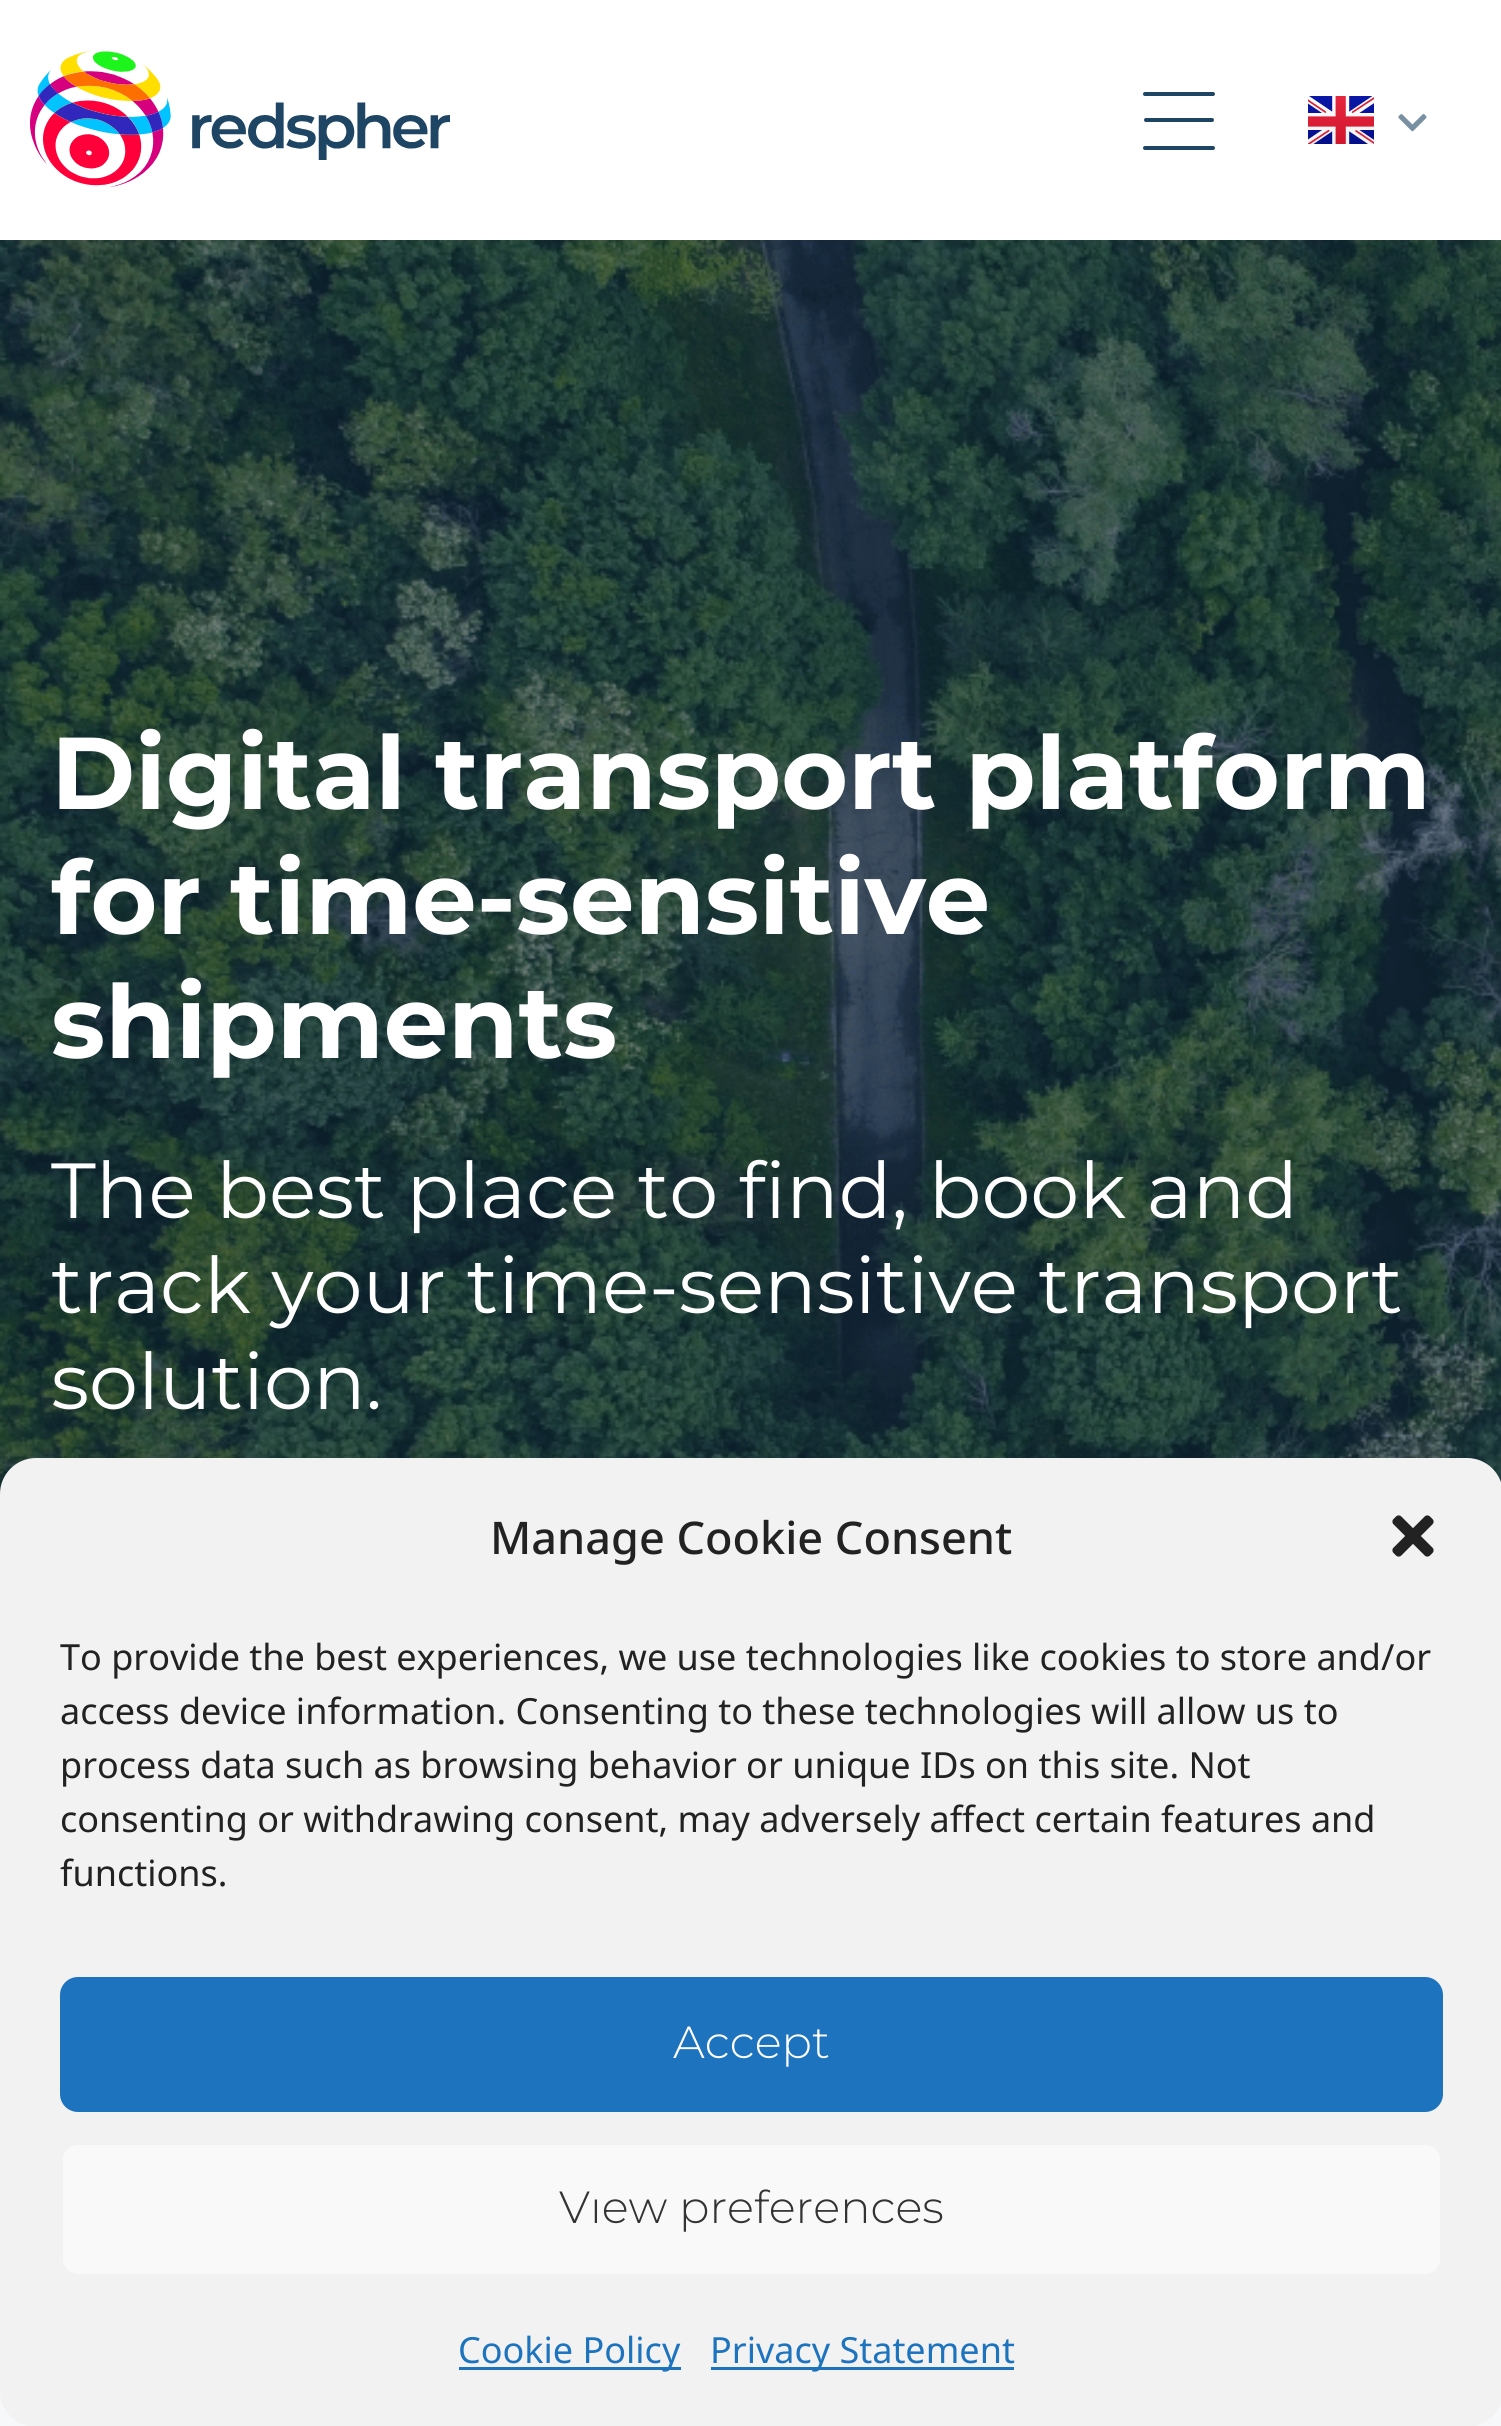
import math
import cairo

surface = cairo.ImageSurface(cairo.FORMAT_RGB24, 1501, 2426)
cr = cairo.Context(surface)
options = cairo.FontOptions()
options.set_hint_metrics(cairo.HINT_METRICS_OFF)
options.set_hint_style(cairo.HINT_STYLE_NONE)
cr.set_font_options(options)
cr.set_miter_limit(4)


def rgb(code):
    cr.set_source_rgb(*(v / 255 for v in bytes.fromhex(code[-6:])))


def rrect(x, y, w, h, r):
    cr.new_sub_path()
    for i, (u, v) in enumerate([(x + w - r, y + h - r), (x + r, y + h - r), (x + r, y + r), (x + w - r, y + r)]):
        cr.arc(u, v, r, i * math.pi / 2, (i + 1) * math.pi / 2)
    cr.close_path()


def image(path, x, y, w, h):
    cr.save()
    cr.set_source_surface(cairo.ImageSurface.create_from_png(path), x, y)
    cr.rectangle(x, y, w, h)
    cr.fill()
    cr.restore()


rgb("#f7f8f9")
cr.paint()
rgb("#ffffff")
cr.rectangle(0, 0, 1501, 240)
cr.fill()
image("img/1.png", 30, 51, 420, 136)
cr.new_path()
cr.move_to(1145, 94)
cr.line_to(1213, 94)
rgb("#1e4664")
cr.set_line_width(4)
cr.set_line_cap(cairo.LINE_CAP_ROUND)
cr.stroke()
cr.new_path()
cr.move_to(1146, 120)
cr.line_to(1212, 120)
cr.stroke()
cr.new_path()
cr.move_to(1145, 148)
cr.line_to(1213, 148)
cr.stroke()
image("img/2.png", 1308, 96, 66, 48)
image("img/3.png", 1398, 114, 29, 18)
image("img/4.png", 0, 240, 1501, 1254)
rgb("#f2f2f2")
rrect(0, 1458, 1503, 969, 36)
cr.fill()
image("img/5.png", 1392, 1515, 42, 42)
rgb("#1e73be")
rrect(61.5, 1978.5, 1380, 132, 16.5)
cr.fill_preserve()
cr.set_line_width(3)
cr.set_line_cap(cairo.LINE_CAP_BUTT)
cr.stroke()
rgb("#f9f9f9")
rrect(61.5, 2143.5, 1380, 132, 16.5)
cr.fill_preserve()
rgb("#f2f2f2")
cr.stroke()
rgb("#1e73be")
cr.rectangle(459, 2367, 222, 3)
cr.fill()
cr.rectangle(711, 2367, 303, 3)
cr.fill()
cr.select_font_face("Montserrat", cairo.FONT_SLANT_NORMAL, cairo.FONT_WEIGHT_BOLD)
cr.set_font_size(102)
rgb("#ffffff")
for x, y, s in [
    (51, 809, "Digital transport platform"),
    (51, 934, "for time-sensitive"),
    (51, 1058, "shipments"),
]:
    cr.move_to(x, y)
    cr.show_text(s)
cr.select_font_face("Montserrat")
cr.set_font_size(78)
for x, y, s in [
    (51, 1218, "The best place to find, book and"),
    (51, 1313, "track your time-sensitive transport"),
    (51, 1409, "solution."),
]:
    cr.move_to(x, y)
    cr.show_text(s)
cr.select_font_face("Noto Sans Medium")
cr.set_font_size(45)
rgb("#222222")
cr.move_to(490, 1554)
cr.show_text("Manage Cookie Consent")
cr.select_font_face("Noto Sans")
cr.set_font_size(36)
for x, y, s in [
    (60, 1670, "To provide the best experiences, we use technologies like cookies to store and/or"),
    (60, 1724, "access device information. Consenting to these technologies will allow us to"),
    (60, 1778, "process data such as browsing behavior or unique IDs on this site. Not"),
    (60, 1832, "consenting or withdrawing consent, may adversely affect certain features and"),
    (60, 1886, "functions."),
]:
    cr.move_to(x, y)
    cr.show_text(s)
cr.select_font_face("Montserrat Light")
cr.set_font_size(45)
rgb("#ffffff")
cr.move_to(673, 2058)
cr.show_text("Accept")
rgb("#333333")
cr.move_to(559, 2223)
cr.show_text("View")
cr.move_to(679, 2223)
cr.show_text("preferences")
cr.select_font_face("Noto Sans")
cr.set_font_size(36)
rgb("#1e73be")
cr.move_to(458, 2363)
cr.show_text("Cookie Policy")
cr.move_to(710, 2363)
cr.show_text("Privacy Statement")
surface.write_to_png("page.png")
